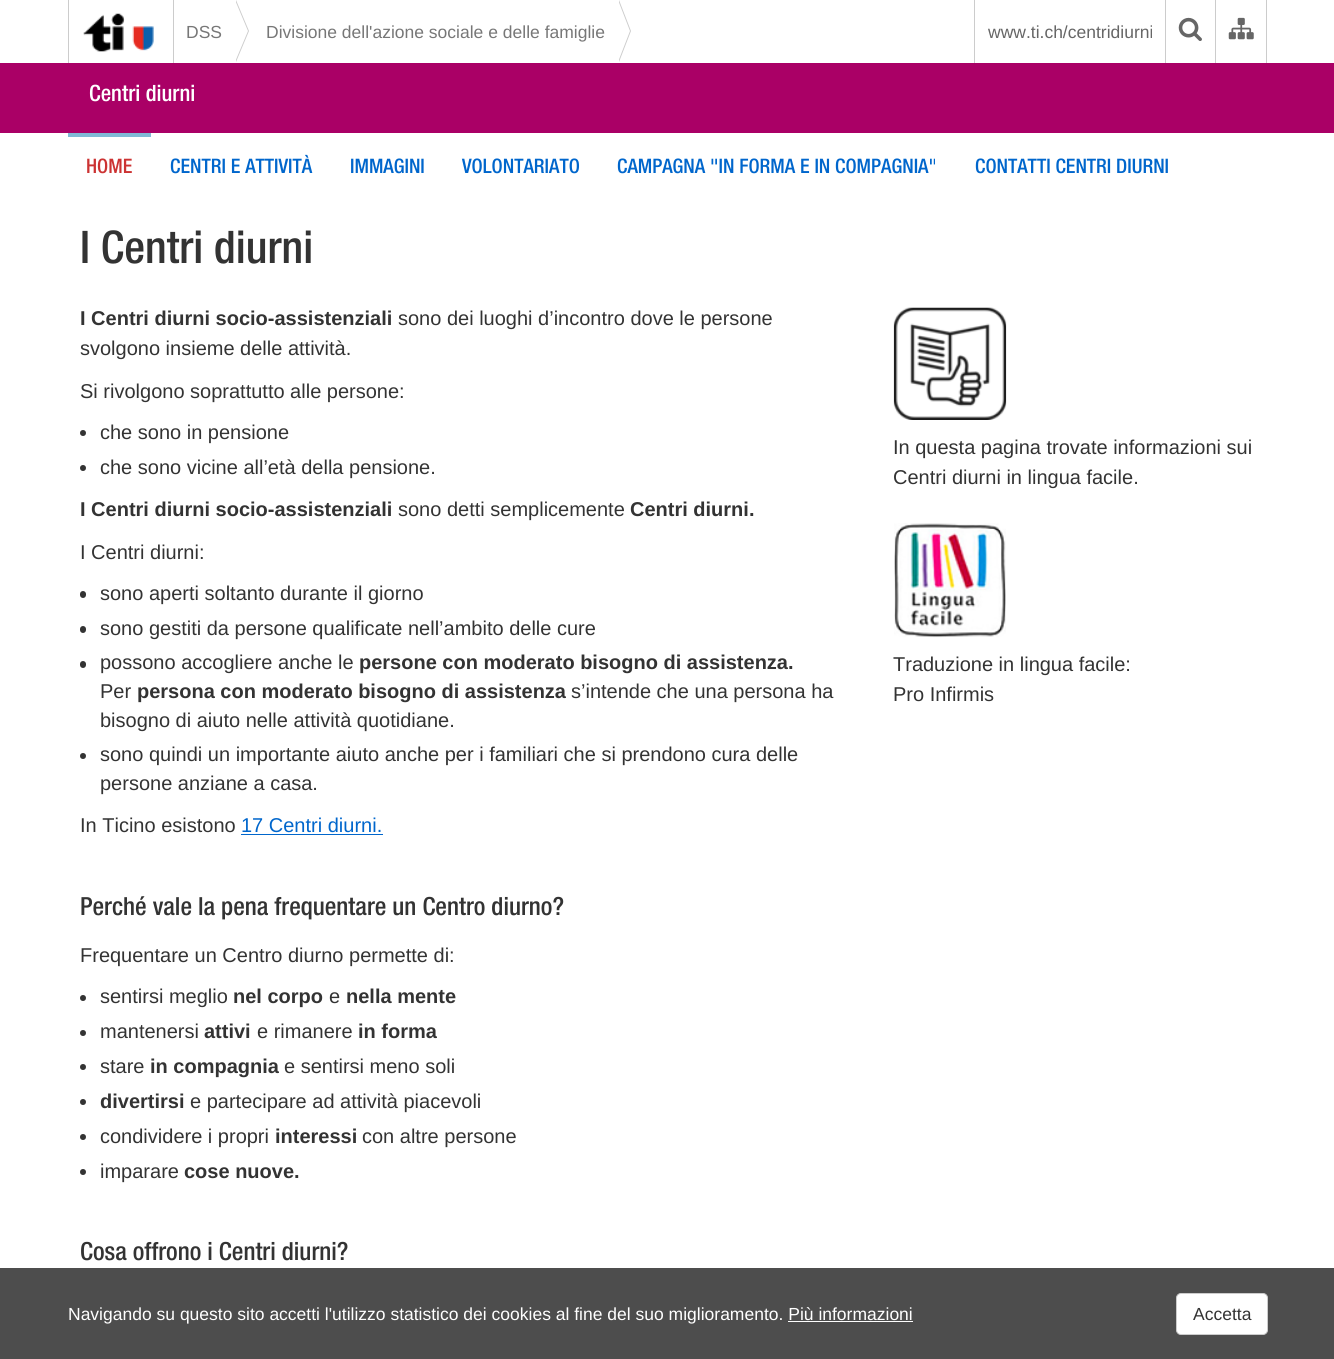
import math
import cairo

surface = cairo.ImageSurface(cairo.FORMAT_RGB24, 1334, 1359)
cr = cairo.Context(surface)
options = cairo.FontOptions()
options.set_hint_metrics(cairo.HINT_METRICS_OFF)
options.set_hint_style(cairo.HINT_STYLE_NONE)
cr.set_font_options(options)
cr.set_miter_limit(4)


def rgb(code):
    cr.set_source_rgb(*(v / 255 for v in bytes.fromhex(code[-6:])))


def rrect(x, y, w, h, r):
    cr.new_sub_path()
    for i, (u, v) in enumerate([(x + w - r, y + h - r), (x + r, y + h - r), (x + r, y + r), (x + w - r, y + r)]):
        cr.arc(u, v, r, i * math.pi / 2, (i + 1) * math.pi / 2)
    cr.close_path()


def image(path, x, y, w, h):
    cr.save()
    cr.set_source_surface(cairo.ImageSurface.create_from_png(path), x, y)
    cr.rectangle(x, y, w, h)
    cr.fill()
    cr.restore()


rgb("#ffffff")
cr.paint()
rgb("#cccccc")
cr.rectangle(173, 0, 1, 63)
cr.fill()
cr.rectangle(68, 0, 1, 63)
cr.fill()
image("img/1.png", 83, 13, 71, 39)
cr.new_path()
cr.move_to(236, 62)
cr.line_to(236, 0)
cr.line_to(249, 31)
cr.close_path()
cr.fill()
rgb("#ffffff")
cr.new_path()
cr.move_to(235, 62)
cr.line_to(235, 0)
cr.line_to(248, 31)
cr.close_path()
cr.fill()
rgb("#cccccc")
cr.new_path()
cr.move_to(619, 62)
cr.line_to(619, 0)
cr.line_to(631, 31)
cr.close_path()
cr.fill()
rgb("#ffffff")
cr.new_path()
cr.move_to(618, 62)
cr.line_to(618, 0)
cr.line_to(630, 31)
cr.close_path()
cr.fill()
for x, y, w, h, color in [
    (1266, 0, 1, 63, "#cccccc"),
    (974, 0, 1, 63, "#cccccc"),
    (1165, 0, 1, 63, "#cccccc"),
]:
    rgb(color)
    cr.rectangle(x, y, w, h)
    cr.fill()
image("img/2.png", 1178, 17, 24, 24)
cr.rectangle(1215, 0, 1, 63)
cr.fill()
image("img/3.png", 1228, 17, 26, 23)
rgb("#aa0066")
cr.rectangle(0, 63, 1334, 70)
cr.fill()
rgb("#80b9d6")
cr.rectangle(68, 133, 83, 4)
cr.fill()
rgb("#333333")
cr.arc(83, 433, 3, 0, 2 * math.pi)
cr.fill()
cr.arc(83, 468, 3, 0, 2 * math.pi)
cr.fill()
rrect(80, 591, 6, 7, 3)
cr.fill()
rrect(80, 626, 6, 7, 3)
cr.fill()
rrect(80, 661, 6, 7, 3)
cr.fill()
cr.arc(83, 756, 3, 0, 2 * math.pi)
cr.fill()
rgb("#0066cc")
cr.rectangle(241, 834, 142, 1)
cr.fill()
rgb("#333333")
cr.arc(83, 998, 3, 0, 2 * math.pi)
cr.fill()
cr.arc(83, 1033, 3, 0, 2 * math.pi)
cr.fill()
cr.arc(83, 1067, 3, 0, 2 * math.pi)
cr.fill()
cr.arc(83, 1102, 3, 0, 2 * math.pi)
cr.fill()
cr.arc(83, 1137, 3, 0, 2 * math.pi)
cr.fill()
cr.arc(83, 1172, 3, 0, 2 * math.pi)
cr.fill()
image("img/4.png", 893, 307, 114, 113)
image("img/5.png", 894, 523, 112, 115)
rgb("#4d4d4d")
cr.rectangle(0, 1268, 1334, 91)
cr.fill()
rgb("#ffffff")
cr.rectangle(788, 1321, 125, 1)
cr.fill()
rrect(1176.5, 1293.5, 91, 41, 4.5)
cr.fill_preserve()
rgb("#cccccc")
cr.set_line_width(1)
cr.stroke()
cr.select_font_face("Liberation Sans")
cr.set_font_size(17.5)
rgb("#777777")
cr.move_to(186, 38)
cr.show_text("DSS")
cr.move_to(266, 38)
cr.show_text("Divisione dell'azione sociale e delle famiglie")
rgb("#666666")
cr.move_to(988, 38)
cr.show_text("www.ti.ch/centridiurni")
cr.select_font_face("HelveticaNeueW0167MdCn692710")
cr.set_font_size(22.5)
rgb("#ffffff")
cr.move_to(89, 101)
cr.show_text("Centri diurni")
cr.set_font_size(20)
rgb("#cc3333")
cr.move_to(86, 173)
cr.show_text("HOME")
rgb("#0066cc")
for x, y, s in [
    (170, 173, "CENTRI E ATTIVITÀ"),
    (350, 173, "IMMAGINI"),
    (462, 173, "VOLONTARIATO"),
    (617, 173, "CAMPAGNA \"IN FORMA E IN COMPAGNIA\""),
    (975, 173, "CONTATTI CENTRI DIURNI"),
]:
    cr.move_to(x, y)
    cr.show_text(s)
cr.set_font_size(45)
rgb("#333333")
cr.move_to(80, 263)
cr.show_text("I Centri diurni")
cr.select_font_face("Liberation Sans", cairo.FONT_SLANT_NORMAL, cairo.FONT_WEIGHT_BOLD)
cr.set_font_size(20)
cr.move_to(80, 325)
cr.show_text("I Centri diurni socio-assistenziali")
cr.select_font_face("Liberation Sans")
for x, y, s in [
    (398, 325, "sono dei luoghi d’incontro dove le persone"),
    (80, 355, "svolgono insieme delle attività."),
    (80, 398, "Si rivolgono soprattutto alle persone:"),
    (100, 439, "che sono in pensione"),
    (100, 474, "che sono vicine all’età della pensione."),
]:
    cr.move_to(x, y)
    cr.show_text(s)
cr.select_font_face("Liberation Sans", cairo.FONT_SLANT_NORMAL, cairo.FONT_WEIGHT_BOLD)
cr.move_to(80, 516)
cr.show_text("I Centri diurni socio-assistenziali")
cr.select_font_face("Liberation Sans")
cr.move_to(398, 516)
cr.show_text("sono detti semplicemente")
cr.select_font_face("Liberation Sans", cairo.FONT_SLANT_NORMAL, cairo.FONT_WEIGHT_BOLD)
cr.move_to(630, 516)
cr.show_text("Centri diurni.")
cr.select_font_face("Liberation Sans")
for x, y, s in [
    (80, 559, "I Centri diurni:"),
    (100, 600, "sono aperti soltanto durante il giorno"),
    (100, 635, "sono gestiti da persone qualificate nell’ambito delle cure"),
    (100, 669, "possono accogliere anche le"),
]:
    cr.move_to(x, y)
    cr.show_text(s)
cr.select_font_face("Liberation Sans", cairo.FONT_SLANT_NORMAL, cairo.FONT_WEIGHT_BOLD)
cr.move_to(359, 669)
cr.show_text("persone con moderato bisogno di assistenza.")
cr.select_font_face("Liberation Sans")
cr.move_to(100, 698)
cr.show_text("Per")
cr.select_font_face("Liberation Sans", cairo.FONT_SLANT_NORMAL, cairo.FONT_WEIGHT_BOLD)
cr.move_to(137, 698)
cr.show_text("persona con moderato bisogno di assistenza")
cr.select_font_face("Liberation Sans")
for x, y, s in [
    (571, 698, "s’intende che una persona ha"),
    (100, 727, "bisogno di aiuto nelle attività quotidiane."),
    (100, 761, "sono quindi un importante aiuto anche per i familiari che si prendono cura delle"),
    (100, 790, "persone anziane a casa."),
    (80, 832, "In Ticino esistono"),
]:
    cr.move_to(x, y)
    cr.show_text(s)
rgb("#0066cc")
cr.move_to(241, 832)
cr.show_text("17 Centri diurni.")
cr.select_font_face("HelveticaNeueW0167MdCn692710")
cr.set_font_size(25)
rgb("#333333")
cr.move_to(80, 915)
cr.show_text("Perché vale la pena frequentare un Centro diurno?")
cr.select_font_face("Liberation Sans")
cr.set_font_size(20)
cr.move_to(80, 962)
cr.show_text("Frequentare un Centro diurno permette di:")
cr.move_to(100, 1003)
cr.show_text("sentirsi meglio")
cr.select_font_face("Liberation Sans", cairo.FONT_SLANT_NORMAL, cairo.FONT_WEIGHT_BOLD)
cr.move_to(233, 1003)
cr.show_text("nel corpo")
cr.select_font_face("Liberation Sans")
cr.move_to(329, 1003)
cr.show_text("e")
cr.select_font_face("Liberation Sans", cairo.FONT_SLANT_NORMAL, cairo.FONT_WEIGHT_BOLD)
cr.move_to(346, 1003)
cr.show_text("nella mente")
cr.select_font_face("Liberation Sans")
cr.move_to(100, 1038)
cr.show_text("mantenersi")
cr.select_font_face("Liberation Sans", cairo.FONT_SLANT_NORMAL, cairo.FONT_WEIGHT_BOLD)
cr.move_to(204, 1038)
cr.show_text("attivi")
cr.select_font_face("Liberation Sans")
cr.move_to(257, 1038)
cr.show_text("e rimanere")
cr.select_font_face("Liberation Sans", cairo.FONT_SLANT_NORMAL, cairo.FONT_WEIGHT_BOLD)
cr.move_to(358, 1038)
cr.show_text("in forma")
cr.select_font_face("Liberation Sans")
cr.move_to(100, 1073)
cr.show_text("stare")
cr.select_font_face("Liberation Sans", cairo.FONT_SLANT_NORMAL, cairo.FONT_WEIGHT_BOLD)
cr.move_to(150, 1073)
cr.show_text("in compagnia")
cr.select_font_face("Liberation Sans")
cr.move_to(284, 1073)
cr.show_text("e sentirsi meno soli")
cr.select_font_face("Liberation Sans", cairo.FONT_SLANT_NORMAL, cairo.FONT_WEIGHT_BOLD)
cr.move_to(100, 1108)
cr.show_text("divertirsi")
cr.select_font_face("Liberation Sans")
cr.move_to(190, 1108)
cr.show_text("e partecipare ad attività piacevoli")
cr.move_to(100, 1143)
cr.show_text("condividere i propri")
cr.select_font_face("Liberation Sans", cairo.FONT_SLANT_NORMAL, cairo.FONT_WEIGHT_BOLD)
cr.move_to(275, 1143)
cr.show_text("interessi")
cr.select_font_face("Liberation Sans")
cr.move_to(362, 1143)
cr.show_text("con altre persone")
cr.move_to(100, 1178)
cr.show_text("imparare")
cr.select_font_face("Liberation Sans", cairo.FONT_SLANT_NORMAL, cairo.FONT_WEIGHT_BOLD)
cr.move_to(184, 1178)
cr.show_text("cose nuove.")
cr.select_font_face("HelveticaNeueW0167MdCn692710")
cr.set_font_size(25)
cr.move_to(80, 1260)
cr.show_text("Cosa offrono i Centri diurni?")
cr.select_font_face("Liberation Sans")
cr.set_font_size(20)
for x, y, s in [
    (893, 454, "In questa pagina trovate informazioni sui"),
    (893, 484, "Centri diurni in lingua facile."),
    (893, 671, "Traduzione in lingua facile:"),
    (893, 701, "Pro Infirmis"),
]:
    cr.move_to(x, y)
    cr.show_text(s)
cr.set_font_size(17.5)
rgb("#ffffff")
cr.move_to(68, 1320)
cr.show_text("Navigando su questo sito accetti l'utilizzo statistico dei cookies al fine del suo miglioramento. Più informazioni")
rgb("#333333")
cr.move_to(1193, 1320)
cr.show_text("Accetta")
surface.write_to_png("page.png")
